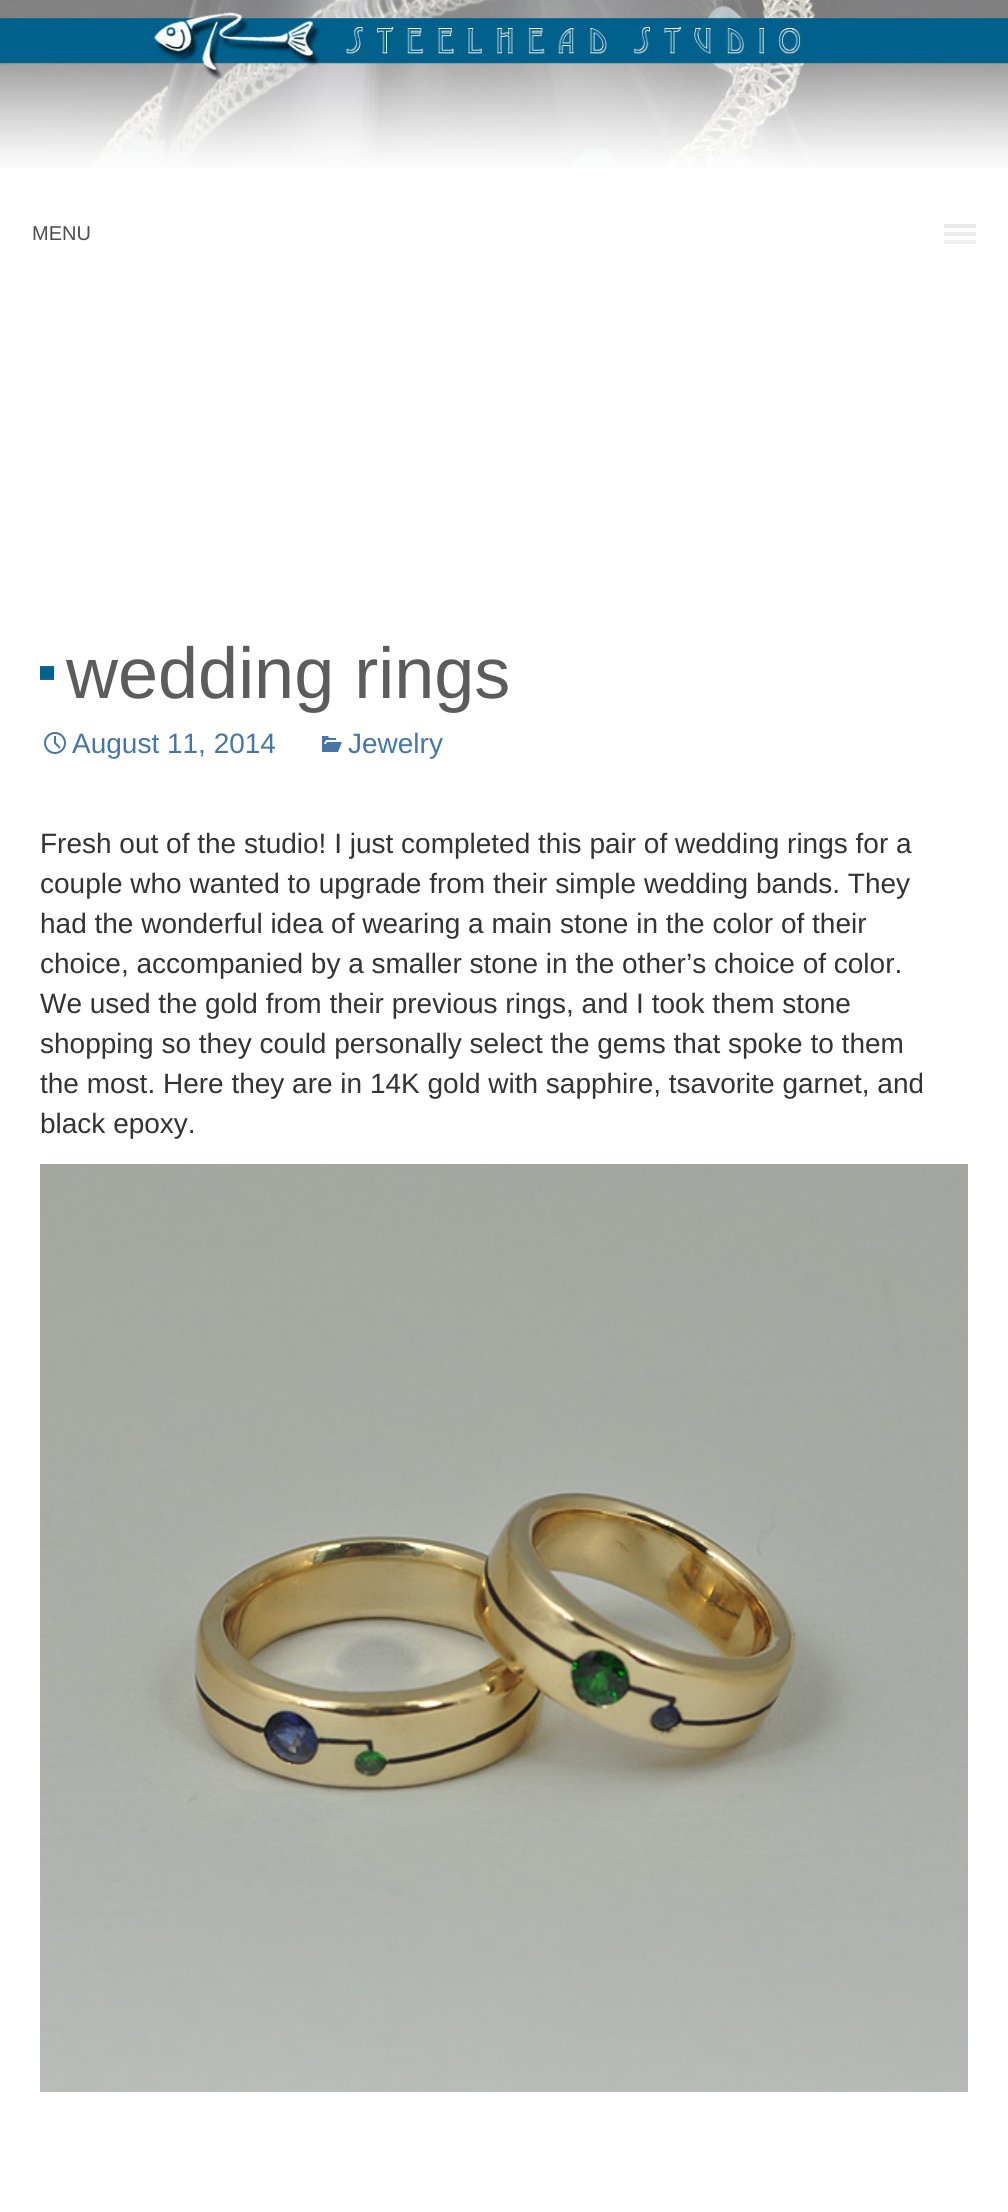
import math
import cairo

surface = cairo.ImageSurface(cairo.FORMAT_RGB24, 1008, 2212)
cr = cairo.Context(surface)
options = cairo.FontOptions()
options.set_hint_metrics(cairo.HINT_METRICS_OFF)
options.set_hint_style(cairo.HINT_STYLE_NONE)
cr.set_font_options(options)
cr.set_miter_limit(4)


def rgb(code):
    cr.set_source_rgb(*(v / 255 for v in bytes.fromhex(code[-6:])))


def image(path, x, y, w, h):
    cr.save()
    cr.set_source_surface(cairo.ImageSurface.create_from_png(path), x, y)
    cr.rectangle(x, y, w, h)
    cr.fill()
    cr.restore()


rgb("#ffffff")
cr.paint()
image("img/1.png", 0, 0, 1008, 168)
for x, y, w, h, color in [
    (944, 240, 32, 4, "#eeeeee"),
    (944, 224, 32, 4, "#e9e9e9"),
    (944, 232, 32, 4, "#ebebeb"),
]:
    rgb(color)
    cr.rectangle(x, y, w, h)
    cr.fill()
image("img/2.png", 40, 666, 14, 14)
image("img/3.png", 44, 732, 22, 22)
image("img/4.png", 322, 736, 20, 16)
image("img/5.png", 40, 1164, 928, 928)
cr.select_font_face("Liberation Sans")
cr.set_font_size(20)
rgb("#4d4d4d")
cr.move_to(32, 240)
cr.show_text("MENU")
cr.set_font_size(72)
rgb("#5c5c5c")
cr.move_to(66, 698)
cr.show_text("wedding rings")
cr.set_font_size(28)
rgb("#4477a6")
cr.move_to(72, 753)
cr.show_text("August 11, 2014")
cr.move_to(348, 753)
cr.show_text("Jewelry")
rgb("#333333")
for x, y, s in [
    (40, 853, "Fresh out of the studio! I just completed this pair of wedding rings for a"),
    (40, 893, "couple who wanted to upgrade from their simple wedding bands. They"),
    (40, 933, "had the wonderful idea of wearing a main stone in the color of their"),
    (40, 973, "choice, accompanied by a smaller stone in the other’s choice of color."),
    (40, 1013, "We used the gold from their previous rings, and I took them stone"),
    (40, 1053, "shopping so they could personally select the gems that spoke to them"),
    (40, 1093, "the most. Here they are in 14K gold with sapphire, tsavorite garnet, and"),
    (40, 1133, "black epoxy."),
]:
    cr.move_to(x, y)
    cr.show_text(s)
surface.write_to_png("page.png")
